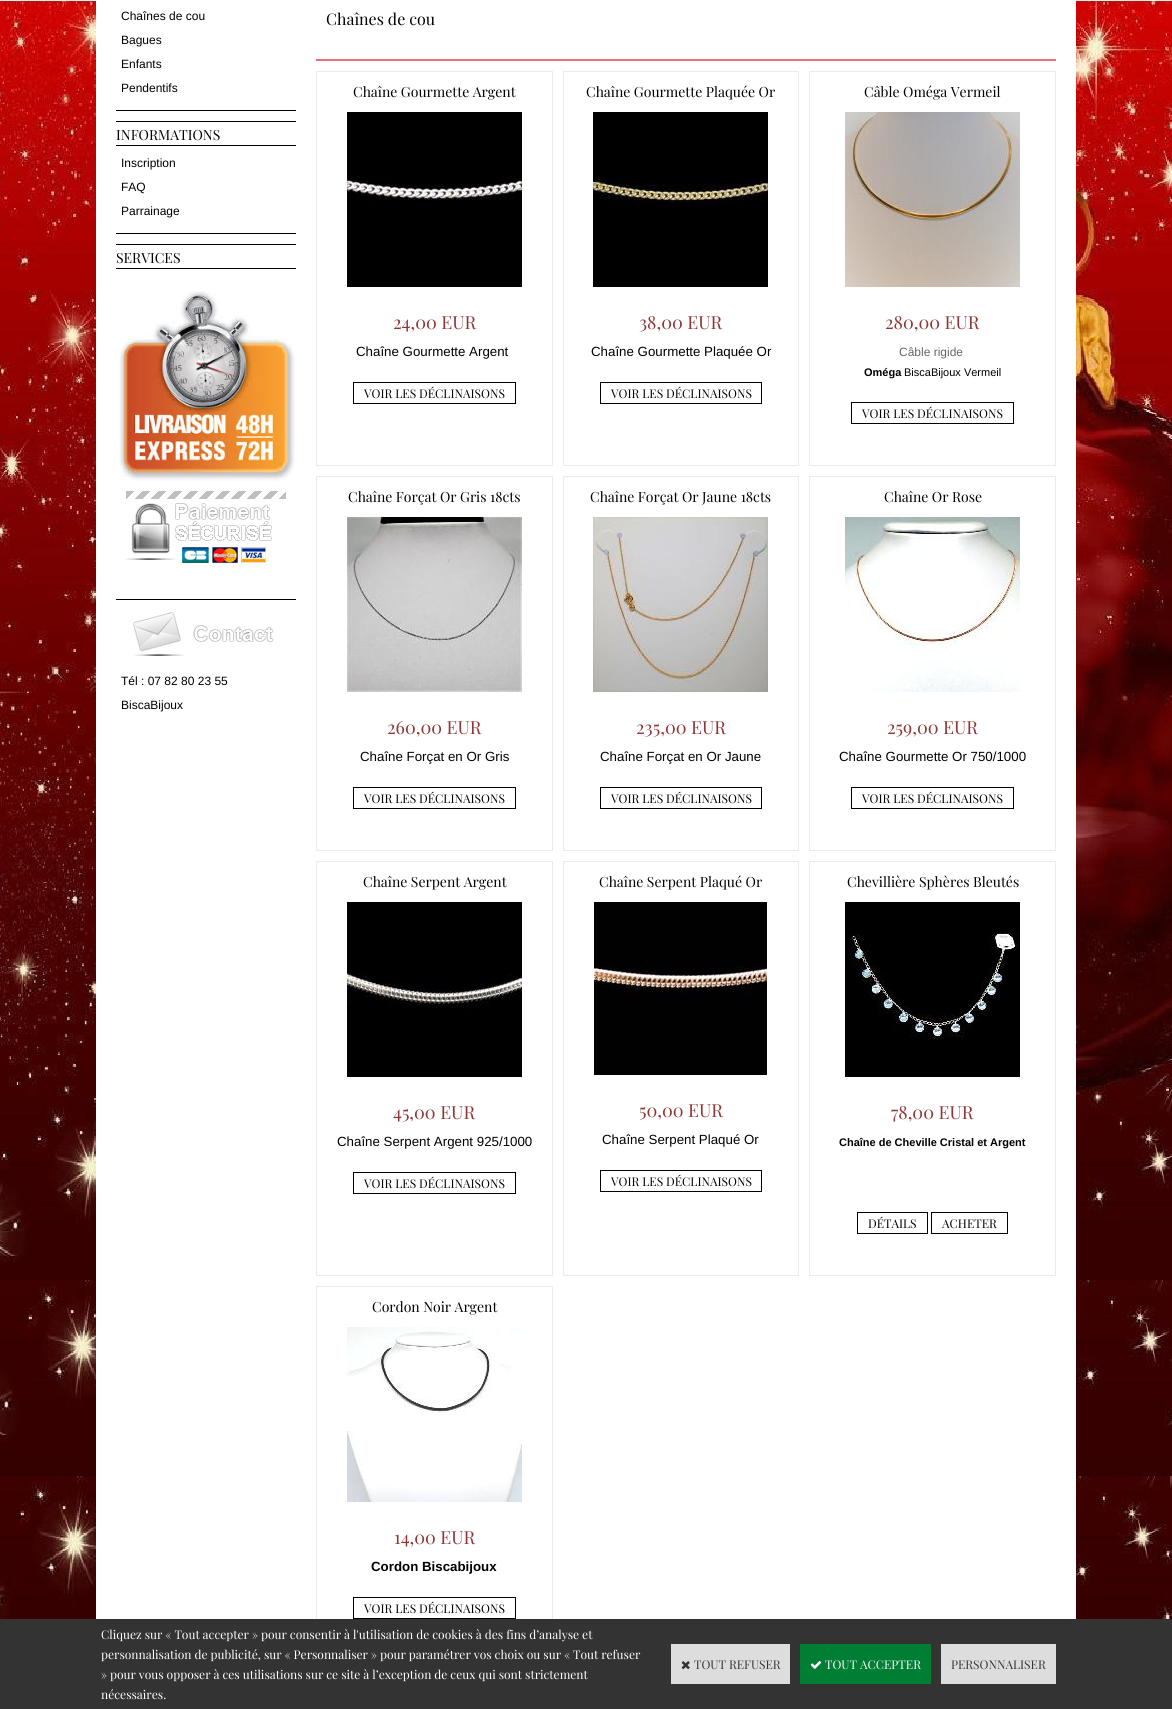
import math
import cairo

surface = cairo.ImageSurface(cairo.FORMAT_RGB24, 1172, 1709)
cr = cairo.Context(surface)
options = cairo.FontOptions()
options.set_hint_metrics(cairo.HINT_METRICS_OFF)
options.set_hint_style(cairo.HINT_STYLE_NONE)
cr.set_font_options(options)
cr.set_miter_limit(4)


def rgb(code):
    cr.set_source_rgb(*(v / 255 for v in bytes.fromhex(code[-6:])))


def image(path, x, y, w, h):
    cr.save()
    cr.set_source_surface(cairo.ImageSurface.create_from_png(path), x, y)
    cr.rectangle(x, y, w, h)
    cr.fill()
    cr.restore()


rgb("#ffffff")
cr.paint()
image("img/1.png", 0, 0, 1172, 1619)
for x, y, w, h, color in [
    (96, 0, 980, 1619, "#ffffff"),
    (116, 110, 180, 1, "#000000"),
    (116, 121, 180, 1, "#000000"),
    (116, 145, 180, 1, "#000000"),
    (116, 233, 180, 1, "#000000"),
    (116, 244, 180, 1, "#000000"),
    (116, 268, 180, 1, "#000000"),
]:
    rgb(color)
    cr.rectangle(x, y, w, h)
    cr.fill()
image("img/2.png", 119, 291, 176, 190)
image("img/3.png", 126, 491, 160, 72)
cr.rectangle(116, 599, 180, 1)
cr.fill()
image("img/4.png", 133, 612, 141, 44)
rgb("#eb7272")
cr.rectangle(316, 59, 740, 2)
cr.fill()
cr.rectangle(316.5, 71.5, 236, 394)
rgb("#ebebeb")
cr.set_line_width(1)
cr.stroke()
image("img/5.png", 347, 112, 175, 175)
cr.rectangle(353.5, 382.5, 162, 21)
rgb("#000000")
cr.stroke()
cr.rectangle(563.5, 71.5, 235, 394)
rgb("#ebebeb")
cr.stroke()
image("img/6.png", 593, 112, 175, 175)
cr.rectangle(600.5, 382.5, 161, 21)
rgb("#000000")
cr.stroke()
cr.rectangle(809.5, 71.5, 246, 394)
rgb("#ebebeb")
cr.stroke()
image("img/7.png", 845, 112, 175, 175)
cr.rectangle(851.5, 402.5, 162, 21)
rgb("#000000")
cr.stroke()
cr.rectangle(316.5, 476.5, 236, 374)
rgb("#ebebeb")
cr.stroke()
image("img/8.png", 347, 517, 175, 175)
cr.rectangle(353.5, 787.5, 162, 21)
rgb("#000000")
cr.stroke()
cr.rectangle(563.5, 476.5, 235, 374)
rgb("#ebebeb")
cr.stroke()
image("img/9.png", 593, 517, 175, 175)
cr.rectangle(600.5, 787.5, 161, 21)
rgb("#000000")
cr.stroke()
cr.rectangle(809.5, 476.5, 246, 374)
rgb("#ebebeb")
cr.stroke()
image("img/10.png", 845, 517, 175, 175)
cr.rectangle(851.5, 787.5, 162, 21)
rgb("#000000")
cr.stroke()
cr.rectangle(316.5, 861.5, 236, 414)
rgb("#ebebeb")
cr.stroke()
image("img/11.png", 347, 902, 175, 175)
cr.rectangle(353.5, 1172.5, 162, 21)
rgb("#000000")
cr.stroke()
cr.rectangle(563.5, 861.5, 235, 414)
rgb("#ebebeb")
cr.stroke()
image("img/12.png", 594, 902, 173, 173)
cr.rectangle(600.5, 1170.5, 161, 21)
rgb("#000000")
cr.stroke()
cr.rectangle(809.5, 861.5, 246, 414)
rgb("#ebebeb")
cr.stroke()
image("img/13.png", 845, 902, 175, 175)
cr.rectangle(857.5, 1212.5, 70, 21)
rgb("#000000")
cr.stroke()
cr.rectangle(931.5, 1212.5, 76, 21)
cr.stroke()
cr.rectangle(316.5, 1286.5, 236, 374)
rgb("#ebebeb")
cr.stroke()
image("img/14.png", 347, 1327, 175, 175)
cr.rectangle(353.5, 1597.5, 162, 21)
rgb("#000000")
cr.stroke()
rgb("#333333")
cr.rectangle(0, 1619, 1172, 90)
cr.fill()
rgb("#dddddd")
cr.rectangle(671, 1644, 119, 40)
cr.fill()
image("img/15.png", 681, 1661, 9, 9)
rgb("#007e33")
cr.rectangle(800, 1644, 131, 40)
cr.fill()
image("img/16.png", 810, 1661, 12, 8)
rgb("#dddddd")
cr.rectangle(941, 1644, 115, 40)
cr.fill()
cr.select_font_face("Liberation Sans")
cr.set_font_size(12)
rgb("#000000")
for x, y, s in [
    (121, 20, "Chaînes de cou"),
    (121, 44, "Bagues"),
    (121, 68, "Enfants"),
    (121, 92, "Pendentifs"),
]:
    cr.move_to(x, y)
    cr.show_text(s)
cr.select_font_face("Playfair Display")
cr.set_font_size(14)
cr.move_to(116, 140)
cr.show_text("INFORMATIONS")
cr.select_font_face("Liberation Sans")
cr.set_font_size(12)
for x, y, s in [
    (121, 167, "Inscription"),
    (121, 191, "FAQ"),
    (121, 215, "Parrainage"),
]:
    cr.move_to(x, y)
    cr.show_text(s)
cr.select_font_face("Playfair Display")
cr.set_font_size(14)
cr.move_to(116, 263)
cr.show_text("SERVICES")
cr.select_font_face("Liberation Sans")
cr.set_font_size(12)
cr.move_to(121, 685)
cr.show_text("Tél : 07 82 80 23 55")
cr.move_to(121, 709)
cr.show_text("BiscaBijoux")
cr.select_font_face("Playfair Display")
cr.set_font_size(16)
cr.move_to(326, 25)
cr.show_text("Chaînes de cou")
cr.set_font_size(14)
cr.move_to(353, 97)
cr.show_text("Chaîne Gourmette Argent")
cr.set_font_size(18)
rgb("#8f3535")
cr.move_to(393, 329)
cr.show_text("24,00 EUR")
cr.select_font_face("Liberation Sans")
cr.set_font_size(13.3)
rgb("#000000")
cr.move_to(356, 356)
cr.show_text("Chaîne Gourmette Argent")
cr.select_font_face("Playfair Display")
cr.set_font_size(12)
cr.move_to(364, 398)
cr.show_text("VOIR LES DÉCLINAISONS")
cr.set_font_size(14)
cr.move_to(586, 97)
cr.show_text("Chaîne Gourmette Plaquée Or")
cr.set_font_size(18)
rgb("#8f3535")
cr.move_to(639, 329)
cr.show_text("38,00 EUR")
cr.select_font_face("Liberation Sans")
cr.set_font_size(13.3)
rgb("#000000")
cr.move_to(591, 356)
cr.show_text("Chaîne Gourmette Plaquée Or")
cr.select_font_face("Playfair Display")
cr.set_font_size(12)
cr.move_to(611, 398)
cr.show_text("VOIR LES DÉCLINAISONS")
cr.set_font_size(14)
cr.move_to(864, 97)
cr.show_text("Câble Oméga Vermeil")
cr.set_font_size(18)
rgb("#8f3535")
cr.move_to(885, 329)
cr.show_text("280,00 EUR")
cr.select_font_face("Liberation Sans")
cr.set_font_size(12)
rgb("#666666")
cr.move_to(899, 356)
cr.show_text("Câble rigide")
cr.select_font_face("Liberation Sans", cairo.FONT_SLANT_NORMAL, cairo.FONT_WEIGHT_BOLD)
cr.set_font_size(11)
rgb("#000000")
cr.move_to(864, 376)
cr.show_text("Oméga")
cr.select_font_face("Liberation Sans")
cr.move_to(904, 376)
cr.show_text("BiscaBijoux Vermeil")
cr.select_font_face("Playfair Display")
cr.set_font_size(12)
cr.move_to(862, 418)
cr.show_text("VOIR LES DÉCLINAISONS")
cr.set_font_size(14)
cr.move_to(348, 502)
cr.show_text("Chaîne Forçat Or Gris 18cts")
cr.set_font_size(18)
rgb("#8f3535")
cr.move_to(387, 734)
cr.show_text("260,00 EUR")
cr.select_font_face("Liberation Sans")
cr.set_font_size(13.3)
rgb("#000000")
cr.move_to(360, 761)
cr.show_text("Chaîne Forçat en Or Gris")
cr.select_font_face("Playfair Display")
cr.set_font_size(12)
cr.move_to(364, 803)
cr.show_text("VOIR LES DÉCLINAISONS")
cr.set_font_size(14)
cr.move_to(590, 502)
cr.show_text("Chaîne Forçat Or Jaune 18cts")
cr.set_font_size(18)
rgb("#8f3535")
cr.move_to(636, 734)
cr.show_text("235,00 EUR")
cr.select_font_face("Liberation Sans")
cr.set_font_size(13.3)
rgb("#000000")
cr.move_to(600, 761)
cr.show_text("Chaîne Forçat en Or Jaune")
cr.select_font_face("Playfair Display")
cr.set_font_size(12)
cr.move_to(611, 803)
cr.show_text("VOIR LES DÉCLINAISONS")
cr.set_font_size(14)
cr.move_to(884, 502)
cr.show_text("Chaîne Or Rose")
cr.set_font_size(18)
rgb("#8f3535")
cr.move_to(887, 734)
cr.show_text("259,00 EUR")
cr.select_font_face("Liberation Sans")
cr.set_font_size(13.3)
rgb("#000000")
cr.move_to(839, 761)
cr.show_text("Chaîne Gourmette Or 750/1000")
cr.select_font_face("Playfair Display")
cr.set_font_size(12)
cr.move_to(862, 803)
cr.show_text("VOIR LES DÉCLINAISONS")
cr.set_font_size(14)
cr.move_to(363, 887)
cr.show_text("Chaîne Serpent Argent")
cr.set_font_size(18)
rgb("#8f3535")
cr.move_to(393, 1119)
cr.show_text("45,00 EUR")
cr.select_font_face("Liberation Sans")
cr.set_font_size(13.3)
rgb("#000000")
cr.move_to(337, 1146)
cr.show_text("Chaîne Serpent Argent 925/1000")
cr.select_font_face("Playfair Display")
cr.set_font_size(12)
cr.move_to(364, 1188)
cr.show_text("VOIR LES DÉCLINAISONS")
cr.set_font_size(14)
cr.move_to(599, 887)
cr.show_text("Chaîne Serpent Plaqué Or")
cr.set_font_size(18)
rgb("#8f3535")
cr.move_to(639, 1117)
cr.show_text("50,00 EUR")
cr.select_font_face("Liberation Sans")
cr.set_font_size(13.3)
rgb("#000000")
cr.move_to(602, 1144)
cr.show_text("Chaîne Serpent Plaqué Or")
cr.select_font_face("Playfair Display")
cr.set_font_size(12)
cr.move_to(611, 1186)
cr.show_text("VOIR LES DÉCLINAISONS")
cr.set_font_size(14)
cr.move_to(847, 887)
cr.show_text("Chevillière Sphères Bleutés")
cr.set_font_size(18)
rgb("#8f3535")
cr.move_to(891, 1119)
cr.show_text("78,00 EUR")
cr.select_font_face("Liberation Sans", cairo.FONT_SLANT_NORMAL, cairo.FONT_WEIGHT_BOLD)
cr.set_font_size(11)
rgb("#000000")
cr.move_to(839, 1146)
cr.show_text("Chaîne de Cheville Cristal et Argent")
cr.select_font_face("Playfair Display")
cr.set_font_size(12)
cr.move_to(868, 1228)
cr.show_text("DÉTAILS")
cr.move_to(942, 1228)
cr.show_text("ACHETER")
cr.set_font_size(14)
cr.move_to(372, 1312)
cr.show_text("Cordon Noir Argent")
cr.set_font_size(18)
rgb("#8f3535")
cr.move_to(394, 1544)
cr.show_text("14,00 EUR")
cr.select_font_face("Liberation Sans", cairo.FONT_SLANT_NORMAL, cairo.FONT_WEIGHT_BOLD)
cr.set_font_size(13.3)
rgb("#000000")
cr.move_to(371, 1571)
cr.show_text("Cordon Biscabijoux")
cr.select_font_face("Playfair Display")
cr.set_font_size(12)
cr.move_to(364, 1613)
cr.show_text("VOIR LES DÉCLINAISONS")
rgb("#ffffff")
for x, y, s in [
    (101, 1639, "Cliquez sur « Tout accepter » pour consentir à l'utilisation de cookies à des fins d’analyse et"),
    (101, 1659, "personnalisation de publicité, sur « Personnaliser » pour paramétrer vos choix ou sur « Tout refuser"),
    (101, 1679, "» pour vous opposer à ces utilisations sur ce site à l’exception de ceux qui sont strictement"),
    (101, 1699, "nécessaires."),
]:
    cr.move_to(x, y)
    cr.show_text(s)
rgb("#333333")
cr.move_to(694, 1669)
cr.show_text("TOUT REFUSER")
rgb("#ffffff")
cr.move_to(825, 1669)
cr.show_text("TOUT ACCEPTER")
rgb("#333333")
cr.move_to(951, 1669)
cr.show_text("PERSONNALISER")
surface.write_to_png("page.png")
